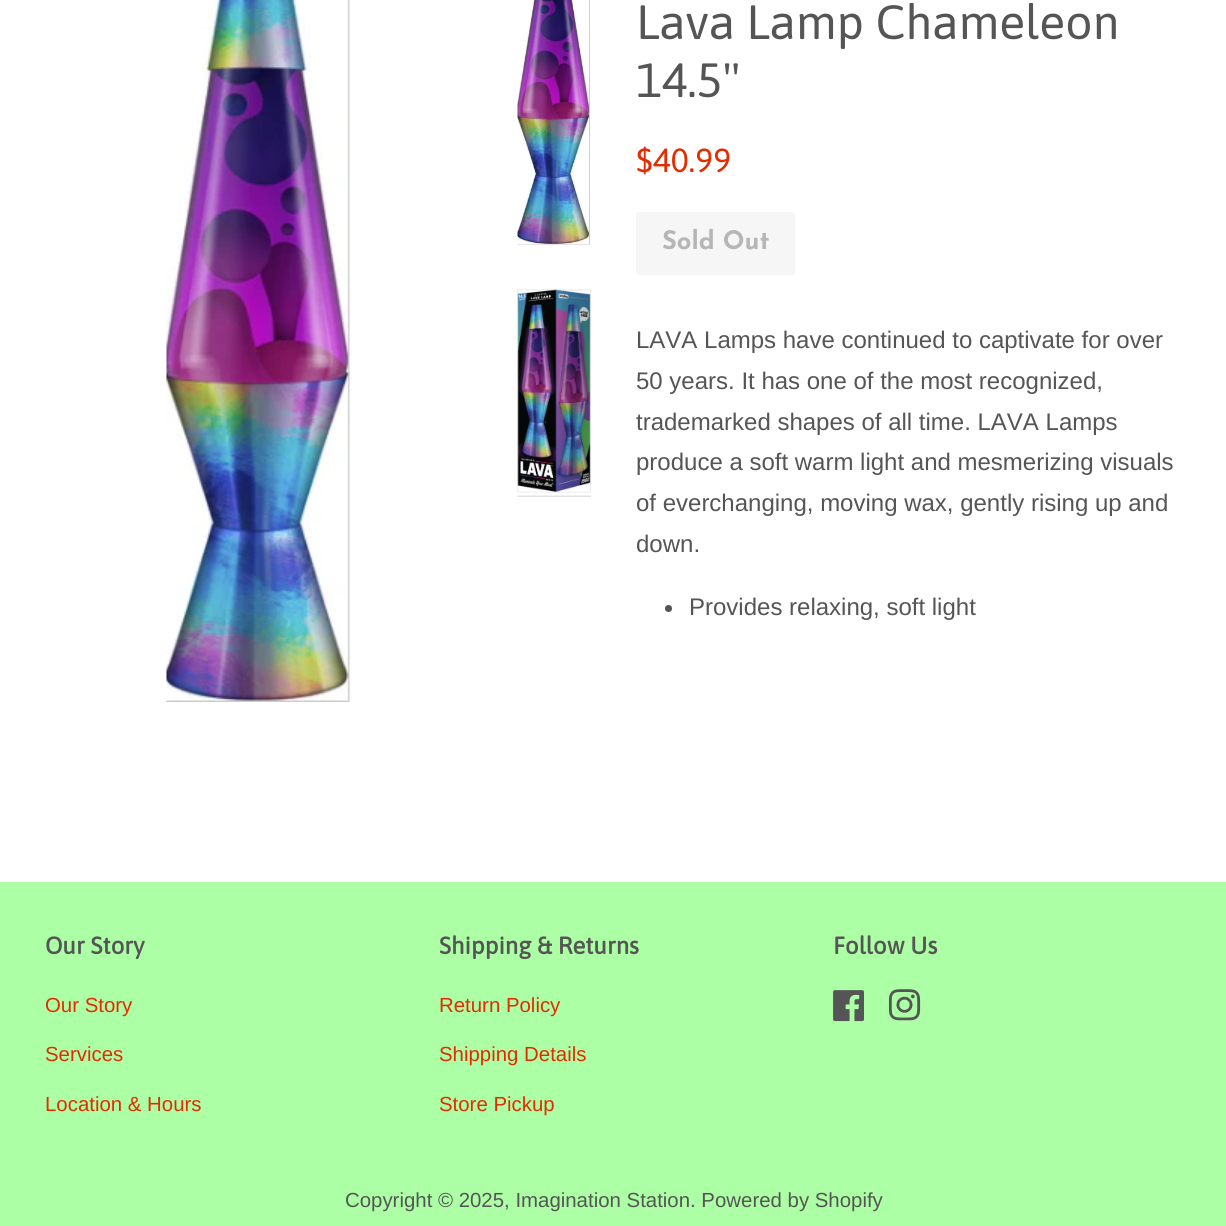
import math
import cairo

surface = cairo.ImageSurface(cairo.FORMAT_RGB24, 1226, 1226)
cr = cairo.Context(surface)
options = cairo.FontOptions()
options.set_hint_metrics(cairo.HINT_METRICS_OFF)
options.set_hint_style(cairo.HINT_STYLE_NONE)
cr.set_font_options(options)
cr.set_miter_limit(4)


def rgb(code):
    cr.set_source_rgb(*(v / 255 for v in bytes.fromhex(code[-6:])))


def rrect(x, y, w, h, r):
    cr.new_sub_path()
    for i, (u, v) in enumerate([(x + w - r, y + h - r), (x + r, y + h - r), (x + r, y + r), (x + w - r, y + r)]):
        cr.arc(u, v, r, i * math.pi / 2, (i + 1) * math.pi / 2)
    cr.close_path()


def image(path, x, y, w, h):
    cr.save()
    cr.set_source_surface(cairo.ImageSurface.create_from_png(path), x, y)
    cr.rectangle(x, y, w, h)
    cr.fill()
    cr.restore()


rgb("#ffffff")
cr.paint()
image("img/1.png", 166, 0, 186, 702)
image("img/2.png", 517, 0, 74, 245)
image("img/3.png", 517, 289, 74, 208)
rgb("#f6f6f6")
rrect(636, 212, 159, 63, 3)
cr.fill()
rgb("#555555")
cr.arc(668.5, 608.5, 3.5, 0, 2 * math.pi)
cr.fill()
rgb("#acffa4")
cr.rectangle(0, 882, 1226, 344)
cr.fill()
image("img/4.png", 833, 990, 31, 32)
image("img/5.png", 888, 989, 33, 32)
cr.select_font_face("Asap")
cr.set_font_size(48)
rgb("#555555")
cr.move_to(636, 39)
cr.show_text("Lava Lamp Chameleon")
cr.move_to(636, 97)
cr.show_text("14.5\"")
cr.set_font_size(33.5)
rgb("#e42c00")
cr.move_to(636, 172)
cr.show_text("$40.99")
cr.select_font_face("Josefin Sans Thin")
cr.set_font_size(25.5)
rgb("#b6b6b6")
cr.move_to(662, 249)
cr.show_text("Sold Out")
cr.select_font_face("Liberation Sans")
cr.set_font_size(24)
rgb("#555555")
for x, y, s in [
    (636, 348, "LAVA Lamps have continued to captivate for over"),
    (636, 389, "50 years. It has one of the most recognized,"),
    (636, 430, "trademarked shapes of all time. LAVA Lamps"),
    (636, 470, "produce a soft warm light and mesmerizing visuals"),
    (636, 511, "of everchanging, moving wax, gently rising up and"),
    (636, 552, "down."),
    (689, 615, "Provides relaxing, soft light"),
]:
    cr.move_to(x, y)
    cr.show_text(s)
cr.select_font_face("Asap", cairo.FONT_SLANT_NORMAL, cairo.FONT_WEIGHT_BOLD)
cr.move_to(45, 954)
cr.show_text("Our Story")
cr.select_font_face("Liberation Sans")
cr.set_font_size(20.4)
rgb("#e42c00")
for x, y, s in [
    (45, 1012, "Our Story"),
    (45, 1061, "Services"),
    (45, 1111, "Location & Hours"),
]:
    cr.move_to(x, y)
    cr.show_text(s)
cr.select_font_face("Asap", cairo.FONT_SLANT_NORMAL, cairo.FONT_WEIGHT_BOLD)
cr.set_font_size(24)
rgb("#555555")
cr.move_to(439, 954)
cr.show_text("Shipping & Returns")
cr.select_font_face("Liberation Sans")
cr.set_font_size(20.4)
rgb("#e42c00")
for x, y, s in [
    (439, 1012, "Return Policy"),
    (439, 1061, "Shipping Details"),
    (439, 1111, "Store Pickup"),
]:
    cr.move_to(x, y)
    cr.show_text(s)
cr.select_font_face("Asap", cairo.FONT_SLANT_NORMAL, cairo.FONT_WEIGHT_BOLD)
cr.set_font_size(24)
rgb("#555555")
cr.move_to(833, 954)
cr.show_text("Follow Us")
cr.select_font_face("Liberation Sans")
cr.set_font_size(20.4)
cr.move_to(345, 1207)
cr.show_text("Copyright © 2025, Imagination Station. Powered by Shopify")
surface.write_to_png("page.png")
